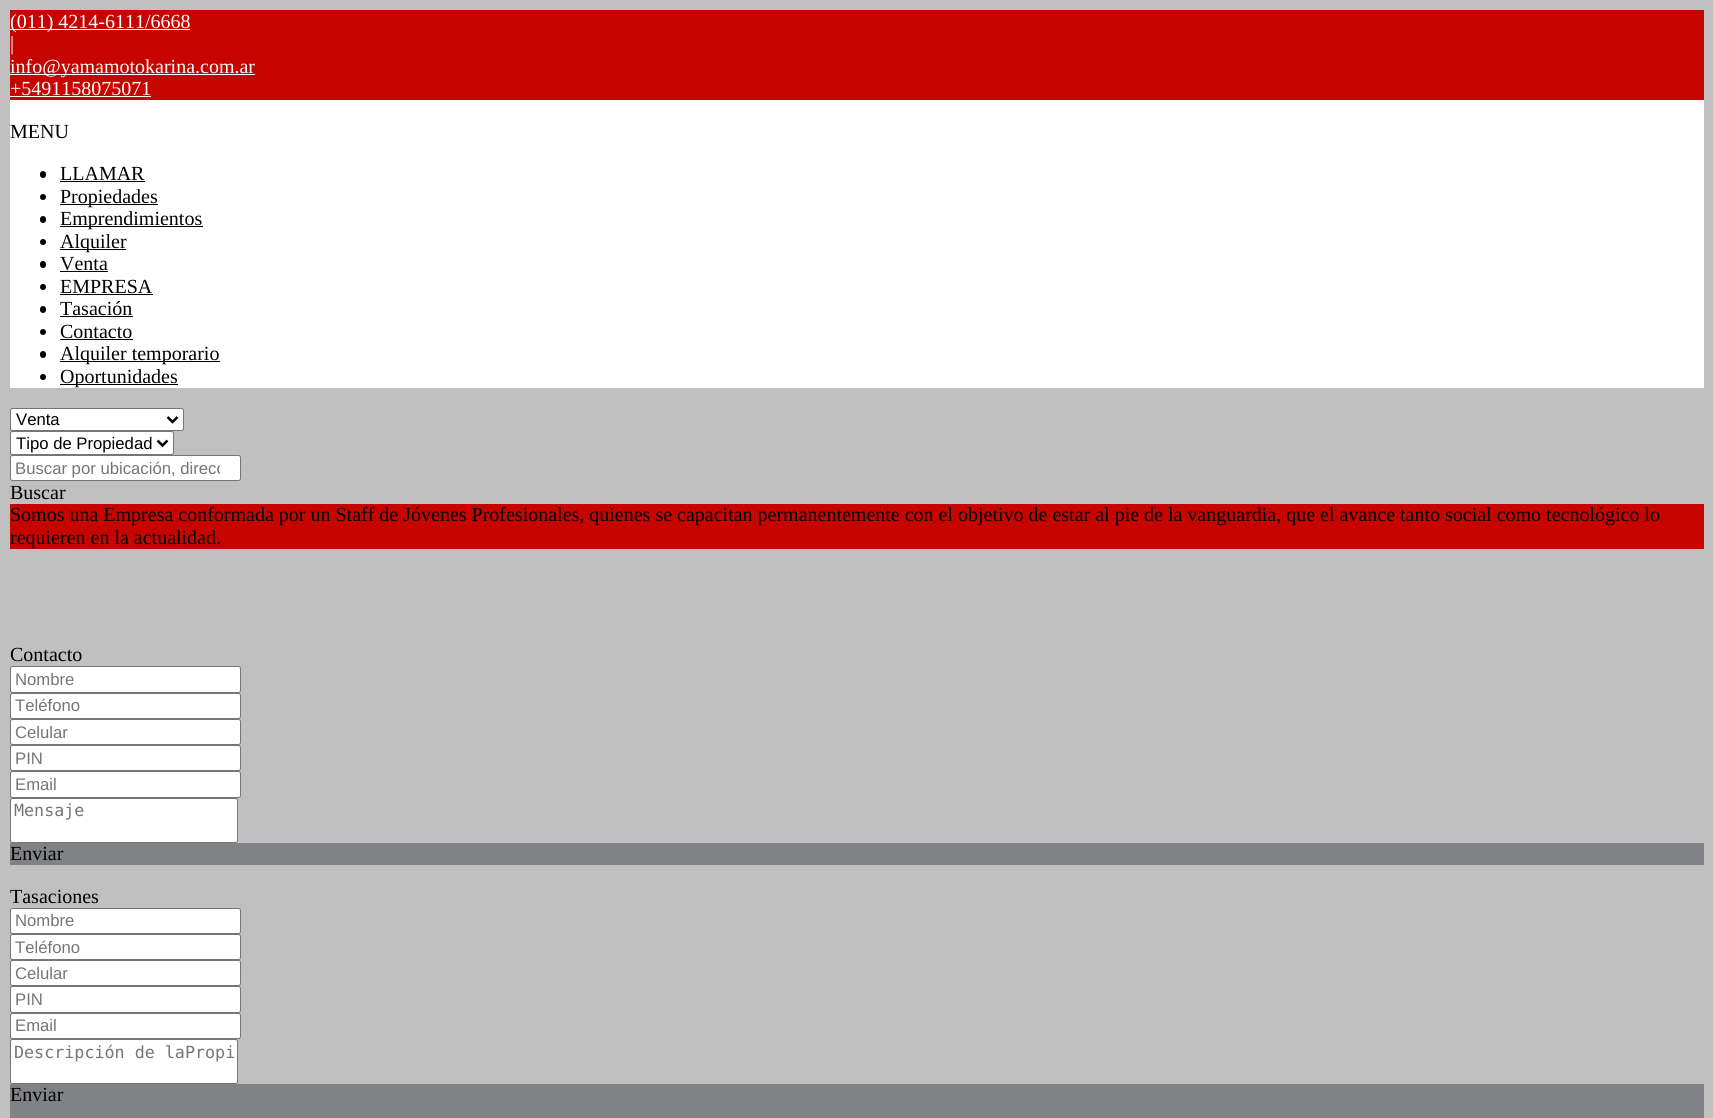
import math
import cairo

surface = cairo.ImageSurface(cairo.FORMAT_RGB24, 1713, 1118)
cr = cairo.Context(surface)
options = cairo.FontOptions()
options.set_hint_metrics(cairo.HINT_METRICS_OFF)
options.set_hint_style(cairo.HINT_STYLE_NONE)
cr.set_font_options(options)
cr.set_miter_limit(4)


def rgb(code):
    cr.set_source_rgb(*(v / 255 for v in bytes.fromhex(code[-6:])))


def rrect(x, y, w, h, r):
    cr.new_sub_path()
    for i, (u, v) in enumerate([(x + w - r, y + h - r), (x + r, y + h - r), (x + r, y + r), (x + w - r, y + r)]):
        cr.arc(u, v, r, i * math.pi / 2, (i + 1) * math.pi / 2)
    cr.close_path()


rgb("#c0c0c0")
cr.paint()
for x, y, w, h, color in [
    (10, 10, 1694, 90, "#c60500"),
    (10, 29, 180, 1, "#ffffff"),
    (10, 74, 245, 1, "#ffffff"),
    (10, 96, 141, 1, "#ffffff"),
    (10, 100, 1694, 288, "#ffffff"),
]:
    rgb(color)
    cr.rectangle(x, y, w, h)
    cr.fill()
rgb("#000000")
rrect(40, 171, 6, 7, 3)
cr.fill()
cr.rectangle(60, 181, 85, 1)
cr.fill()
cr.arc(43, 197, 3, 0, 2 * math.pi)
cr.fill()
cr.rectangle(60, 204, 98, 1)
cr.fill()
rrect(40, 216, 6, 7, 3)
cr.fill()
cr.rectangle(60, 226, 143, 1)
cr.fill()
cr.arc(43, 242, 3, 0, 2 * math.pi)
cr.fill()
cr.rectangle(60, 249, 66, 1)
cr.fill()
rrect(40, 261, 6, 7, 3)
cr.fill()
cr.rectangle(60, 271, 48, 1)
cr.fill()
cr.arc(43, 287, 3, 0, 2 * math.pi)
cr.fill()
cr.rectangle(60, 294, 93, 1)
cr.fill()
rrect(40, 306, 6, 7, 3)
cr.fill()
cr.rectangle(60, 316, 73, 1)
cr.fill()
cr.arc(43, 332, 3, 0, 2 * math.pi)
cr.fill()
cr.rectangle(60, 339, 73, 1)
cr.fill()
rrect(40, 351, 6, 7, 3)
cr.fill()
cr.rectangle(60, 361, 160, 1)
cr.fill()
cr.arc(43, 377, 3, 0, 2 * math.pi)
cr.fill()
cr.rectangle(60, 384, 118, 1)
cr.fill()
rgb("#ffffff")
rrect(10.5, 408.5, 173, 22, 2)
cr.fill_preserve()
rgb("#767676")
cr.set_line_width(1)
cr.stroke()
cr.new_path()
cr.move_to(167.5, 417)
cr.line_to(172.5, 422)
cr.line_to(177.5, 417)
rgb("#000000")
cr.set_line_width(2.5)
cr.stroke()
rgb("#ffffff")
rrect(10.5, 431.5, 163, 23, 2)
cr.fill_preserve()
rgb("#767676")
cr.set_line_width(1)
cr.stroke()
cr.new_path()
cr.move_to(157.5, 440.5)
cr.line_to(162.5, 445.5)
cr.line_to(167.5, 440.5)
rgb("#000000")
cr.set_line_width(2.5)
cr.stroke()
rgb("#ffffff")
rrect(10.5, 455.5, 230, 25, 2)
cr.fill_preserve()
rgb("#767676")
cr.set_line_width(1)
cr.stroke()
rgb("#c60500")
cr.rectangle(10, 504, 1694, 45)
cr.fill()
rgb("#ffffff")
rrect(10.5, 666.5, 230, 26, 2)
cr.fill_preserve()
rgb("#767676")
cr.stroke()
rgb("#ffffff")
rrect(10.5, 693.5, 230, 25, 2)
cr.fill_preserve()
rgb("#767676")
cr.stroke()
rgb("#ffffff")
rrect(10.5, 719.5, 230, 25, 2)
cr.fill_preserve()
rgb("#767676")
cr.stroke()
rgb("#ffffff")
rrect(10.5, 745.5, 230, 25, 2)
cr.fill_preserve()
rgb("#767676")
cr.stroke()
rgb("#ffffff")
rrect(10.5, 771.5, 230, 26, 2)
cr.fill_preserve()
rgb("#767676")
cr.stroke()
rgb("#ffffff")
rrect(10.5, 798.5, 227, 44, 2)
cr.fill_preserve()
rgb("#767676")
cr.stroke()
rgb("#808285")
cr.rectangle(10, 843, 1694, 22)
cr.fill()
rgb("#ffffff")
rrect(10.5, 908.5, 230, 25, 2)
cr.fill_preserve()
rgb("#767676")
cr.stroke()
rgb("#ffffff")
rrect(10.5, 934.5, 230, 25, 2)
cr.fill_preserve()
rgb("#767676")
cr.stroke()
rgb("#ffffff")
rrect(10.5, 960.5, 230, 25, 2)
cr.fill_preserve()
rgb("#767676")
cr.stroke()
rgb("#ffffff")
rrect(10.5, 986.5, 230, 26, 2)
cr.fill_preserve()
rgb("#767676")
cr.stroke()
rgb("#ffffff")
rrect(10.5, 1013.5, 230, 25, 2)
cr.fill_preserve()
rgb("#767676")
cr.stroke()
rgb("#ffffff")
rrect(10.5, 1039.5, 227, 44, 2)
cr.fill_preserve()
rgb("#767676")
cr.stroke()
rgb("#808285")
cr.rectangle(10, 1084, 1694, 34)
cr.fill()
cr.select_font_face("Liberation Serif")
cr.set_font_size(20)
rgb("#ffffff")
for x, y, s in [
    (10, 28, "(011) 4214-6111/6668"),
    (10, 50, "|"),
    (10, 73, "info@yamamotokarina.com.ar"),
    (10, 95, "+5491158075071"),
]:
    cr.move_to(x, y)
    cr.show_text(s)
rgb("#000000")
for x, y, s in [
    (10, 138, "MENU"),
    (60, 180, "LLAMAR"),
    (60, 203, "Propiedades"),
    (60, 225, "Emprendimientos"),
    (60, 248, "Alquiler"),
    (60, 270, "Venta"),
    (60, 293, "EMPRESA"),
    (60, 315, "Tasación"),
    (60, 338, "Contacto"),
    (60, 360, "Alquiler temporario"),
    (60, 383, "Oportunidades"),
]:
    cr.move_to(x, y)
    cr.show_text(s)
cr.select_font_face("Liberation Sans")
cr.set_font_size(16.7)
cr.move_to(16, 425)
cr.show_text("Venta")
cr.move_to(16, 449)
cr.show_text("Tipo de Propiedad")
cr.save()
cr.rectangle(15, 459, 205, 19)
cr.clip()
rgb("#757575")
cr.move_to(15, 474)
cr.show_text("Buscar por ubicación, direcc")
cr.restore()
cr.select_font_face("Liberation Serif")
cr.set_font_size(20)
for x, y, s in [
    (10, 499, "Buscar"),
    (10, 521, "Somos una Empresa conformada por un Staff de Jóvenes Profesionales, quienes se capacitan permanentemente con el objetivo de estar al pie de la vanguardia, que el avance tanto social como tecnológico lo"),
    (10, 544, "requieren en la actualidad."),
    (10, 661, "Contacto"),
]:
    cr.move_to(x, y)
    cr.show_text(s)
cr.select_font_face("Liberation Sans")
cr.set_font_size(16.7)
rgb("#757575")
for x, y, s in [
    (15, 685, "Nombre"),
    (15, 711, "Teléfono"),
    (15, 738, "Celular"),
    (15, 764, "PIN"),
    (15, 790, "Email"),
]:
    cr.move_to(x, y)
    cr.show_text(s)
cr.select_font_face("DejaVu Sans Mono")
cr.move_to(14, 816)
cr.show_text("Mensaje")
cr.select_font_face("Liberation Serif")
cr.set_font_size(20)
rgb("#000000")
cr.move_to(10, 860)
cr.show_text("Enviar")
cr.move_to(10, 903)
cr.show_text("Tasaciones")
cr.select_font_face("Liberation Sans")
cr.set_font_size(16.7)
rgb("#757575")
for x, y, s in [
    (15, 926, "Nombre"),
    (15, 953, "Teléfono"),
    (15, 979, "Celular"),
    (15, 1005, "PIN"),
    (15, 1031, "Email"),
]:
    cr.move_to(x, y)
    cr.show_text(s)
cr.select_font_face("DejaVu Sans Mono")
cr.move_to(14, 1058)
cr.show_text("Descripción de laPropi")
cr.select_font_face("Liberation Serif")
cr.set_font_size(20)
rgb("#000000")
cr.move_to(10, 1101)
cr.show_text("Enviar")
surface.write_to_png("page.png")
